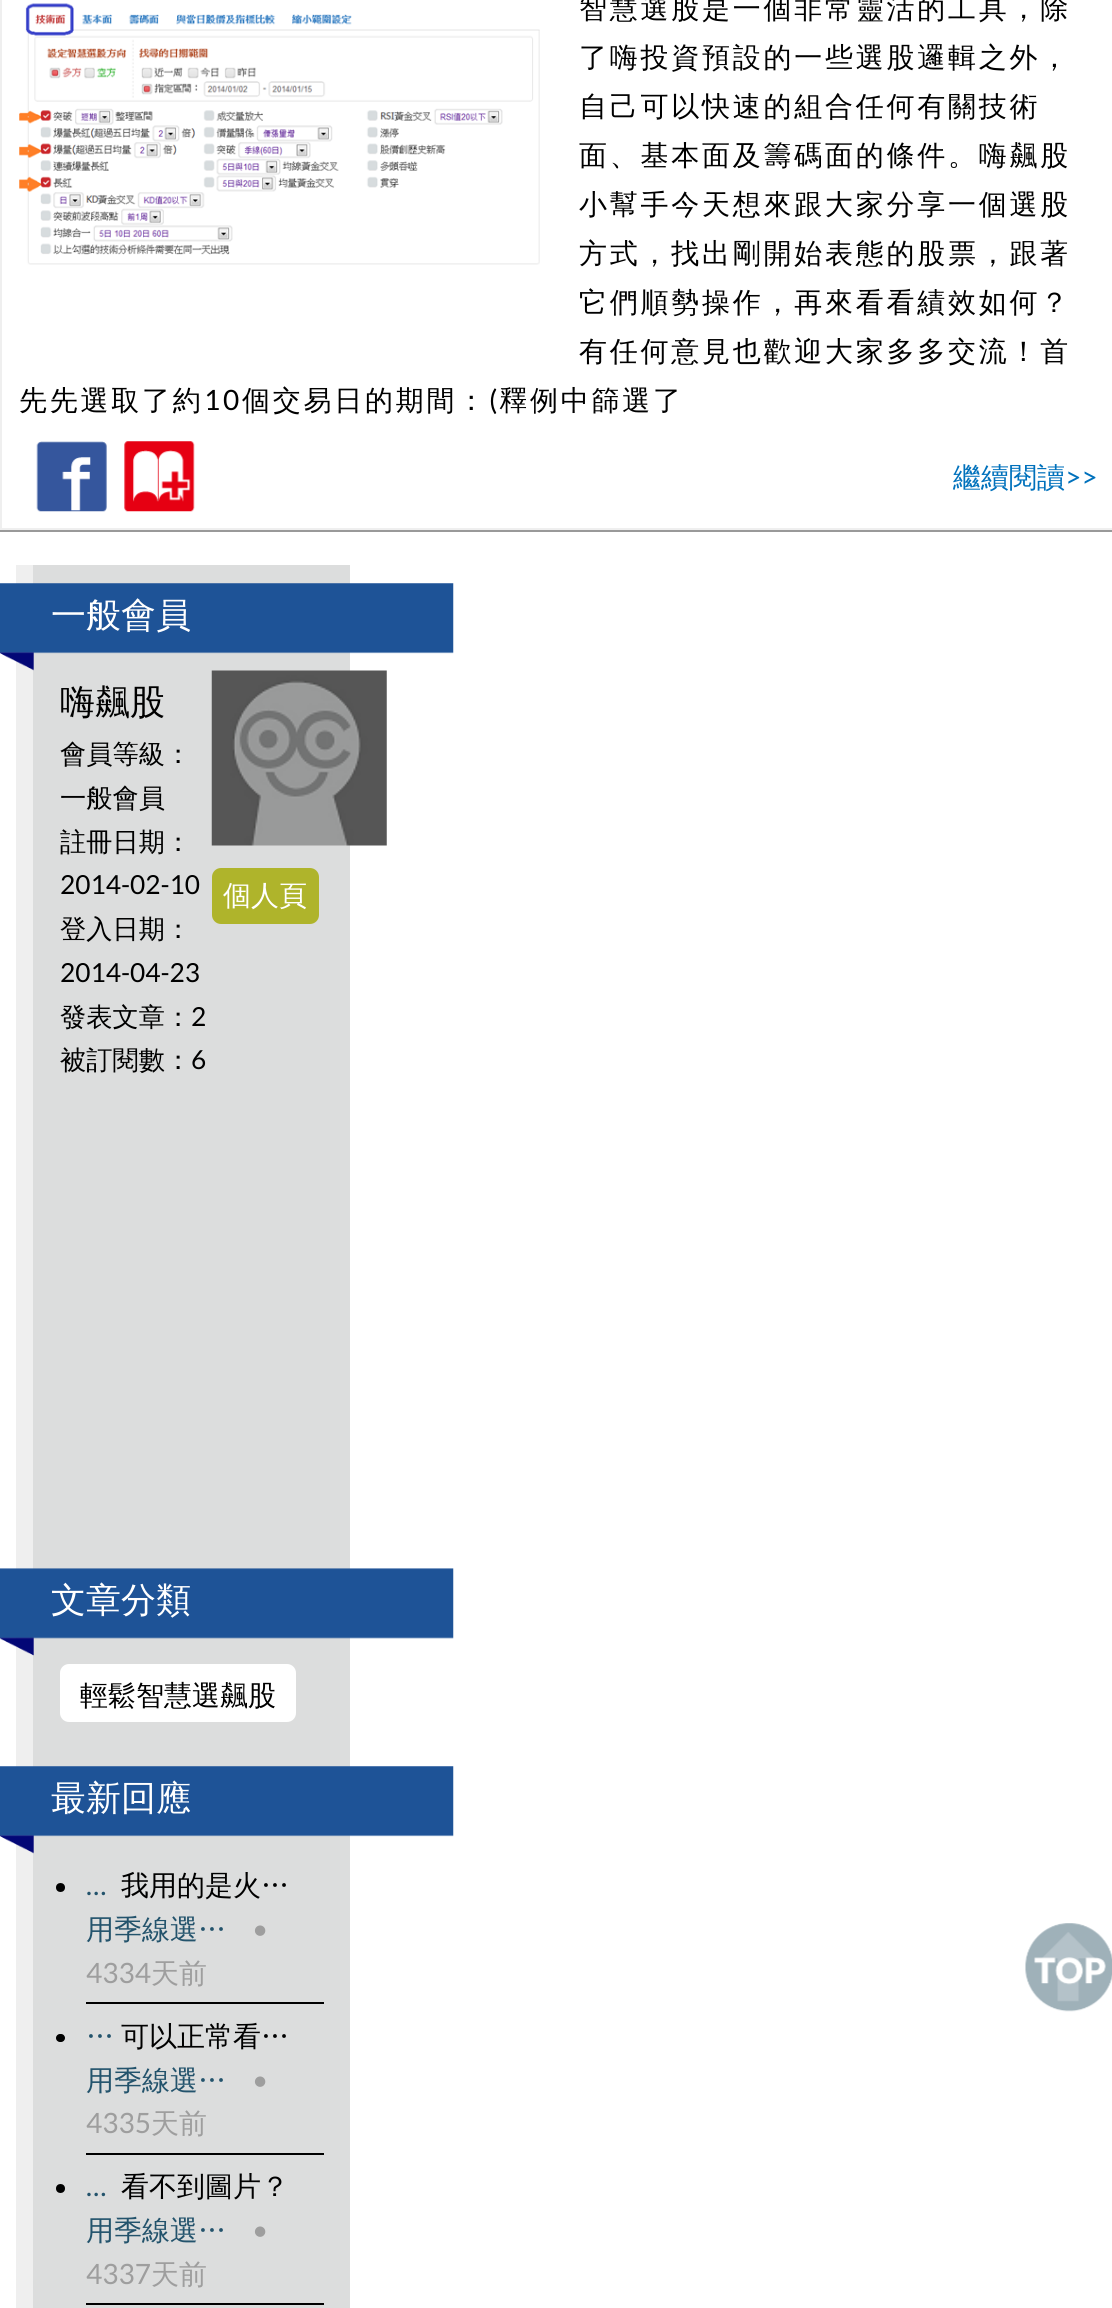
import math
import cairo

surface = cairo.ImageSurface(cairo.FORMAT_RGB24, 1112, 2308)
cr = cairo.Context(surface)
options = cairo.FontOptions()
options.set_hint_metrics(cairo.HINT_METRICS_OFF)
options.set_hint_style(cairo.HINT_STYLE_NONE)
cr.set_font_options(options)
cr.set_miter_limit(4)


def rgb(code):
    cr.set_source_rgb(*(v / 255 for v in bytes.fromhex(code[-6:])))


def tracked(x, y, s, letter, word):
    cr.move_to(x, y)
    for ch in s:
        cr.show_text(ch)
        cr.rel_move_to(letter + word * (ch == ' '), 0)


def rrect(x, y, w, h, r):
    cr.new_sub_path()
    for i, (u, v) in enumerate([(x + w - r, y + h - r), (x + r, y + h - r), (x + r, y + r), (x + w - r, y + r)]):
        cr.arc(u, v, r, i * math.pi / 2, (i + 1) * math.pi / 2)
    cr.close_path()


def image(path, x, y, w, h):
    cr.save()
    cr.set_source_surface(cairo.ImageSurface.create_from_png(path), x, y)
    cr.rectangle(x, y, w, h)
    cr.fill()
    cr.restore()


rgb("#ffffff")
cr.paint()
rgb("#999999")
cr.new_path()
cr.move_to(0, 530)
cr.line_to(0, 532)
cr.line_to(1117, 532)
cr.line_to(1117, -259)
cr.line_to(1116, -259)
cr.line_to(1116, 530)
cr.close_path()
cr.fill()
cr.rectangle(1, -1, 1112, 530)
rgb("#efefef")
cr.stroke()
image("img/1.png", 19, 3, 521, 262)
image("img/2.png", 36, 441, 71, 71)
image("img/3.png", 124, 441, 71, 71)
cr.rectangle(16, 565, 17, 1743)
cr.fill()
rgb("#dcdddd")
cr.rectangle(33, 565, 317, 1743)
cr.fill()
image("img/4.png", 0, 583, 454, 88)
image("img/5.png", 211, 670, 176, 176)
rgb("#afb42b")
rrect(212, 868, 107, 56, 9)
cr.fill()
image("img/6.png", 0, 1568, 454, 88)
rgb("#ffffff")
rrect(60, 1664, 236, 58, 9)
cr.fill()
image("img/4.png", 0, 1766, 454, 88)
rgb("#000000")
cr.rectangle(86, 2002, 238, 2)
cr.fill()
cr.arc(60.5, 1887.5, 4.5, 0, 2 * math.pi)
cr.fill()
cr.rectangle(86, 2153, 238, 2)
cr.fill()
rrect(56, 2034, 9, 8, 4)
cr.fill()
cr.rectangle(86, 2303, 238, 2)
cr.fill()
cr.arc(60.5, 2188.5, 4.5, 0, 2 * math.pi)
cr.fill()
image("img/7.png", 1025, 1923, 87, 89)
cr.select_font_face("WenQuanYi Zen Hei Medium")
cr.set_font_size(28)
for x, y, s in [
    (579, 18, "智慧選股是一個非常靈活的工具，除"),
    (579, 67, "了嗨投資預設的一些選股邏輯之外，"),
    (579, 116, "自己可以快速的組合任何有關技術"),
    (579, 165, "面、基本面及籌碼面的條件。嗨飆股"),
    (579, 214, "小幫手今天想來跟大家分享一個選股"),
    (579, 263, "方式，找出剛開始表態的股票，跟著"),
    (579, 312, "它們順勢操作，再來看看績效如何？"),
    (579, 361, "有任何意見也歡迎大家多多交流！首"),
    (19, 410, "先先選取了約"),
    (242, 410, "個交易日的期間： 釋例中篩選了"),
]:
    tracked(x, y, s, 2.75, 0)
cr.select_font_face("Lato")
tracked(204, 410, "10", 2.75, 0)
tracked(489, 410, "(", 2.75, 0)
cr.select_font_face("WenQuanYi Zen Hei Medium")
rgb("#0071bc")
cr.move_to(953, 487)
cr.show_text("繼續閱讀")
cr.select_font_face("Lato")
cr.move_to(1065, 487)
cr.show_text(">>")
cr.select_font_face("WenQuanYi Zen Hei Medium")
cr.set_font_size(35)
rgb("#ffffff")
cr.move_to(51, 627)
cr.show_text("一般會員")
rgb("#000000")
cr.move_to(60, 714)
cr.show_text("嗨飆股")
cr.set_font_size(26.25)
for x, y, s in [
    (60, 763, "會員等級："),
    (60, 807, "一般會員"),
    (60, 851, "註冊日期："),
]:
    cr.move_to(x, y)
    cr.show_text(s)
cr.select_font_face("Lato")
cr.move_to(60, 894)
cr.show_text("2014-02-10")
cr.select_font_face("WenQuanYi Zen Hei Medium")
cr.move_to(60, 938)
cr.show_text("登入日期：")
cr.select_font_face("Lato")
cr.move_to(60, 982)
cr.show_text("2014-04-23")
cr.select_font_face("WenQuanYi Zen Hei Medium")
cr.move_to(60, 1026)
cr.show_text("發表文章：")
cr.select_font_face("Lato")
cr.move_to(191, 1026)
cr.show_text("2")
cr.select_font_face("WenQuanYi Zen Hei Medium")
cr.move_to(60, 1069)
cr.show_text("被訂閱數：")
cr.select_font_face("Lato")
cr.move_to(191, 1069)
cr.show_text("6")
cr.select_font_face("WenQuanYi Zen Hei Medium")
cr.set_font_size(28)
rgb("#ffffff")
cr.move_to(223, 905)
cr.show_text("個人頁")
cr.set_font_size(35)
cr.move_to(51, 1612)
cr.show_text("文章分類")
cr.set_font_size(28)
rgb("#000000")
cr.move_to(80, 1705)
cr.show_text("輕鬆智慧選飆股")
cr.set_font_size(35)
rgb("#ffffff")
cr.move_to(51, 1810)
cr.show_text("最新回應")
cr.select_font_face("Lato")
cr.set_font_size(28)
rgb("#23536c")
cr.move_to(86, 1895)
cr.show_text("…")
cr.select_font_face("WenQuanYi Zen Hei Medium")
rgb("#000000")
cr.move_to(121, 1895)
cr.show_text("我用的是火…")
rgb("#23536c")
cr.move_to(86, 1939)
cr.show_text("用季線選…")
cr.select_font_face("Lato")
rgb("#9e9e9e")
cr.move_to(252, 1939)
cr.show_text("•")
cr.move_to(86, 1983)
cr.show_text("4334")
cr.select_font_face("WenQuanYi Zen Hei Medium")
cr.move_to(151, 1983)
cr.show_text("天前")
rgb("#23536c")
cr.move_to(86, 2046)
cr.show_text("…")
rgb("#000000")
cr.move_to(121, 2046)
cr.show_text("可以正常看…")
rgb("#23536c")
cr.move_to(86, 2090)
cr.show_text("用季線選…")
cr.select_font_face("Lato")
rgb("#9e9e9e")
cr.move_to(252, 2090)
cr.show_text("•")
cr.move_to(86, 2133)
cr.show_text("4335")
cr.select_font_face("WenQuanYi Zen Hei Medium")
cr.move_to(151, 2133)
cr.show_text("天前")
cr.select_font_face("Lato")
rgb("#23536c")
cr.move_to(86, 2196)
cr.show_text("…")
cr.select_font_face("WenQuanYi Zen Hei Medium")
rgb("#000000")
cr.move_to(121, 2196)
cr.show_text("看不到圖片？")
rgb("#23536c")
cr.move_to(86, 2240)
cr.show_text("用季線選…")
cr.select_font_face("Lato")
rgb("#9e9e9e")
cr.move_to(252, 2240)
cr.show_text("•")
cr.move_to(86, 2284)
cr.show_text("4337")
cr.select_font_face("WenQuanYi Zen Hei Medium")
cr.move_to(151, 2284)
cr.show_text("天前")
surface.write_to_png("page.png")
